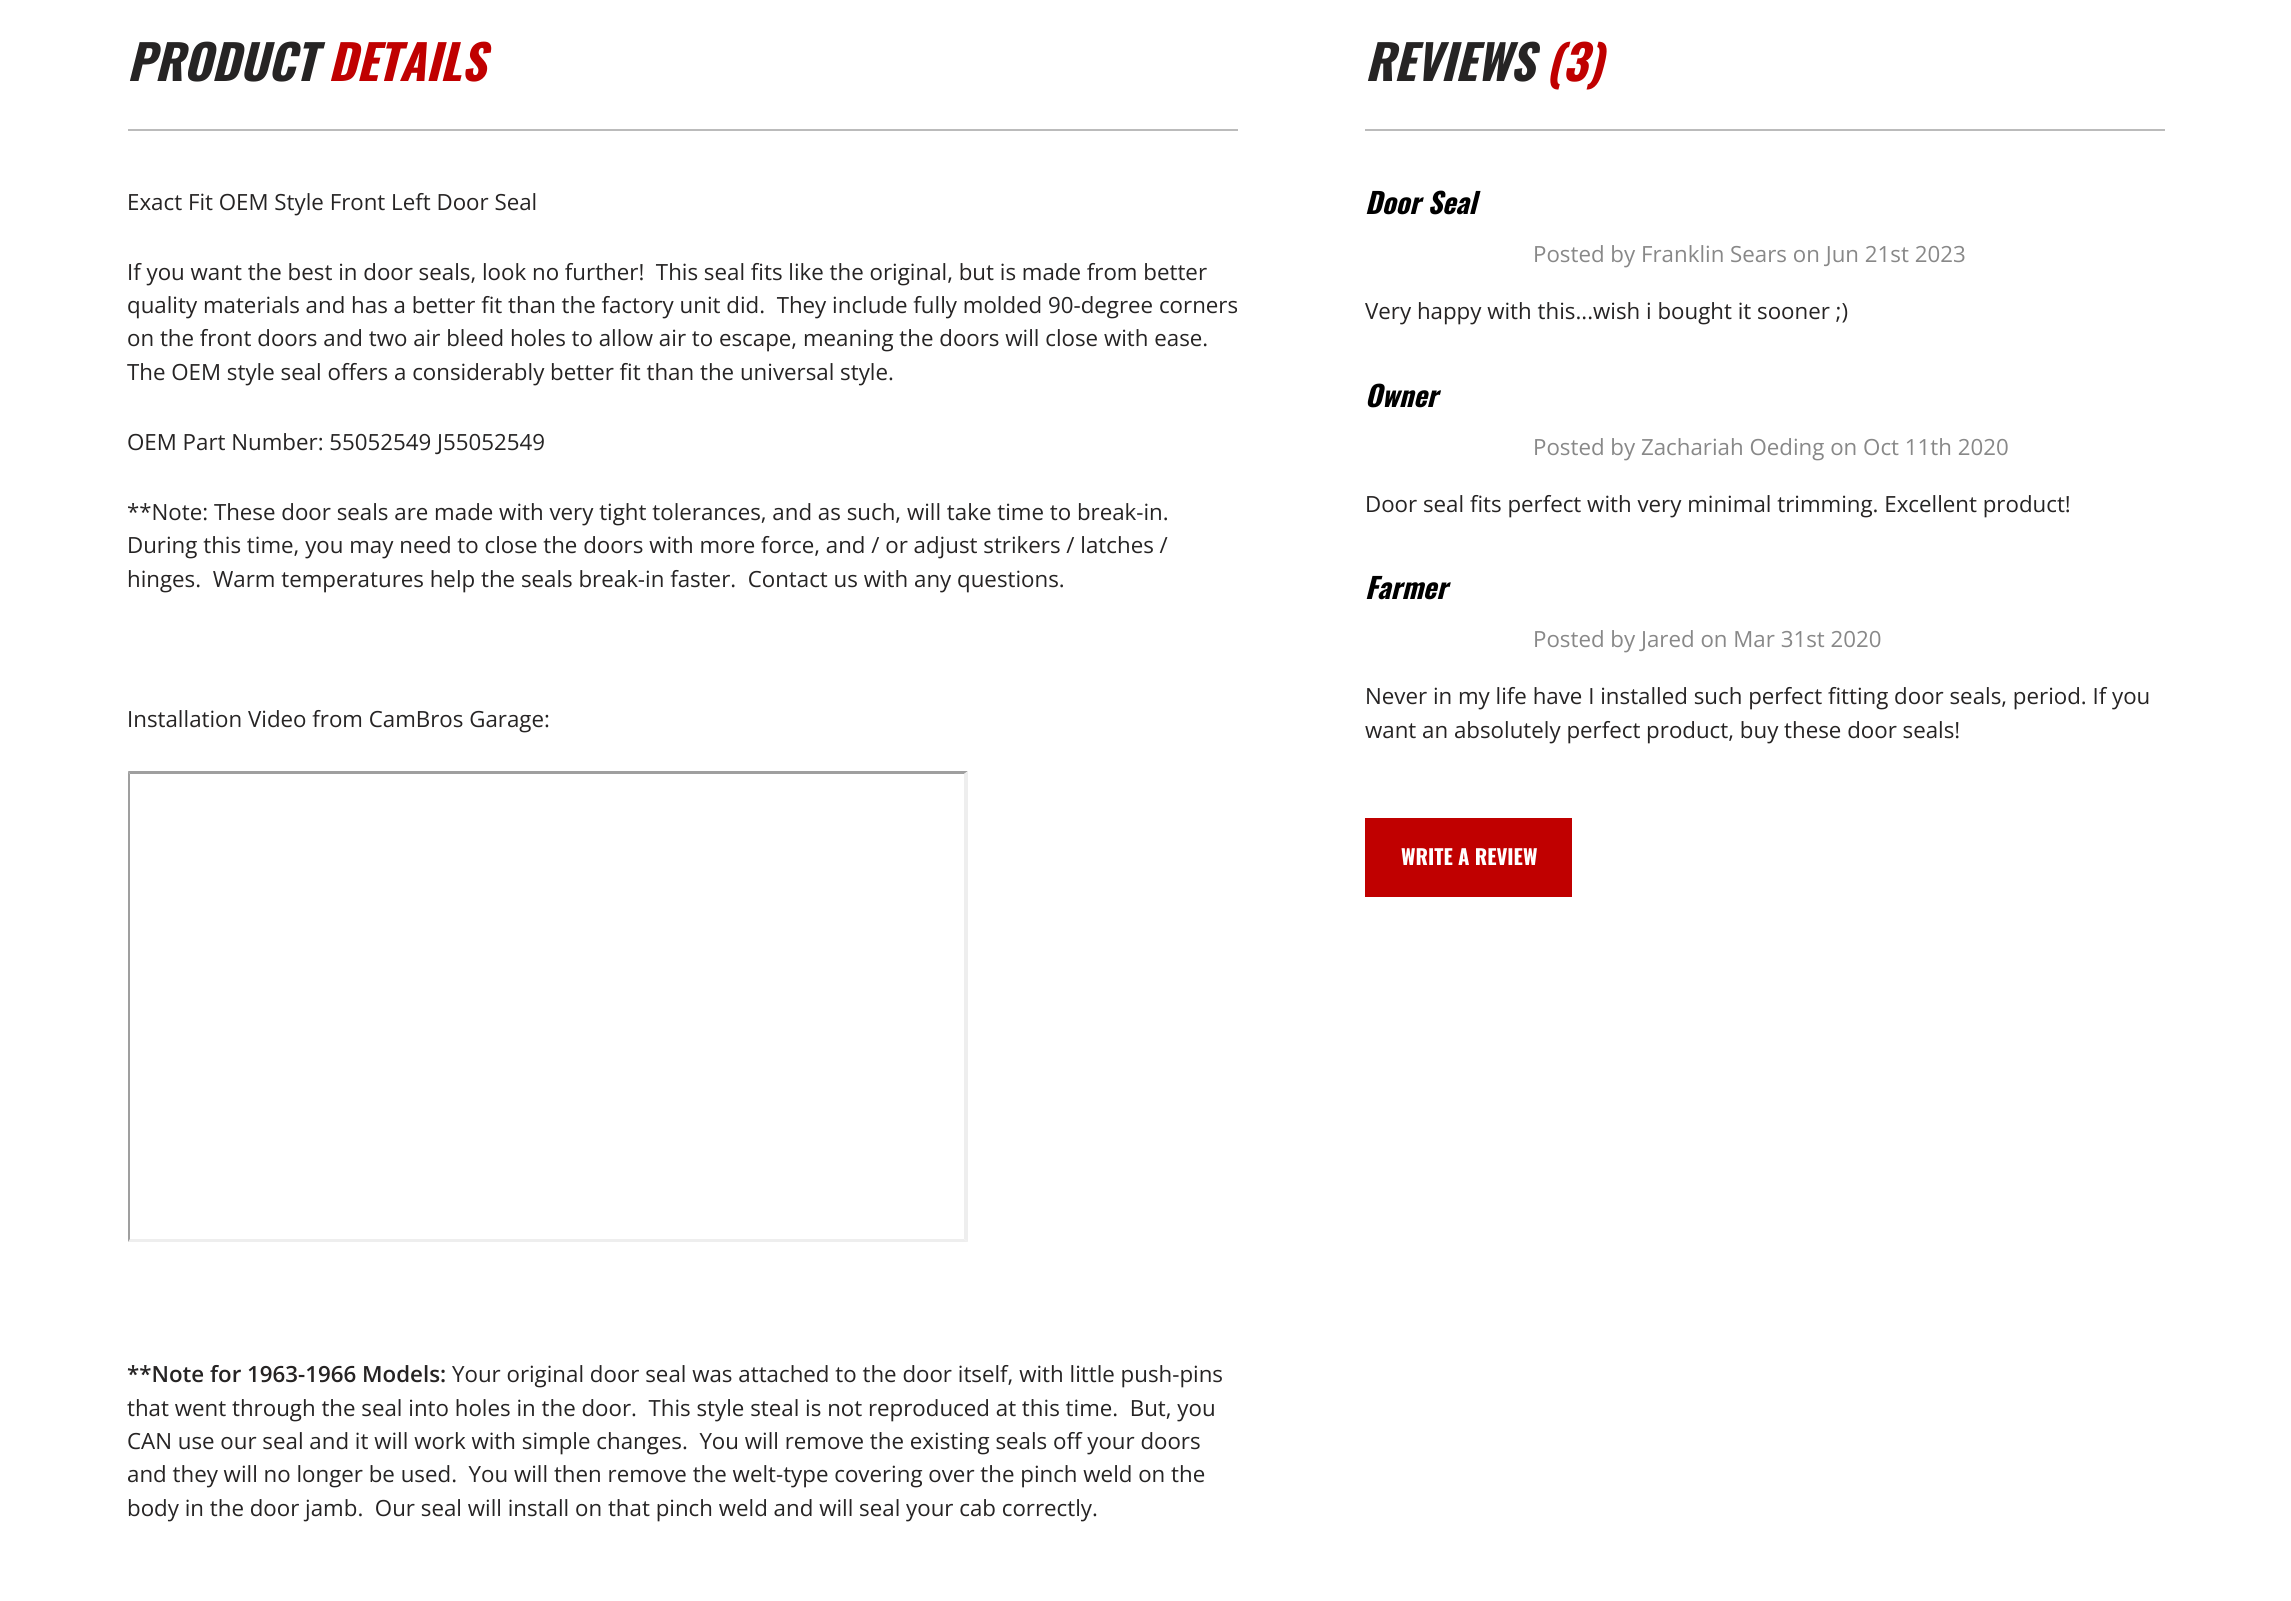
import math
import cairo

surface = cairo.ImageSurface(cairo.FORMAT_RGB24, 2291, 1601)
cr = cairo.Context(surface)
options = cairo.FontOptions()
options.set_hint_metrics(cairo.HINT_METRICS_OFF)
options.set_hint_style(cairo.HINT_STYLE_NONE)
cr.set_font_options(options)
cr.set_miter_limit(4)


def rgb(code):
    cr.set_source_rgb(*(v / 255 for v in bytes.fromhex(code[-6:])))


rgb("#ffffff")
cr.paint()
rgb("#bbbbbb")
cr.rectangle(128, 129, 1110, 2)
cr.fill()
rgb("#9f9f9f")
cr.new_path()
cr.move_to(128, 771)
cr.line_to(968, 771)
cr.line_to(964, 774)
cr.line_to(130, 774)
cr.close_path()
cr.fill()
rgb("#eeeeee")
cr.new_path()
cr.move_to(968, 771)
cr.line_to(968, 1242)
cr.line_to(964, 1239)
cr.line_to(964, 774)
cr.close_path()
cr.fill()
cr.new_path()
cr.move_to(968, 1242)
cr.line_to(128, 1242)
cr.line_to(130, 1239)
cr.line_to(964, 1239)
cr.close_path()
cr.fill()
rgb("#9f9f9f")
cr.new_path()
cr.move_to(128, 1242)
cr.line_to(128, 771)
cr.line_to(130, 774)
cr.line_to(130, 1239)
cr.close_path()
cr.fill()
rgb("#bbbbbb")
cr.rectangle(1365, 129, 800, 2)
cr.fill()
rgb("#c00000")
cr.rectangle(1365, 818, 207, 79)
cr.fill()
cr.select_font_face("Oswald", cairo.FONT_SLANT_ITALIC, cairo.FONT_WEIGHT_BOLD)
cr.set_font_size(48)
rgb("#262424")
cr.move_to(127, 81)
cr.show_text("PRODUCT")
rgb("#c00000")
cr.move_to(328, 81)
cr.show_text("DETAILS")
cr.select_font_face("Open Sans")
cr.set_font_size(22.3)
rgb("#262424")
for x, y, s in [
    (127, 210, "Exact Fit OEM Style Front Left Door Seal"),
    (127, 280, "If you want the best in door seals, look no further!  This seal fits like the original, but is made from better"),
    (127, 313, "quality materials and has a better fit than the factory unit did.  They include fully molded 90-degree corners"),
    (127, 346, "on the front doors and two air bleed holes to allow air to escape, meaning the doors will close with ease."),
    (127, 380, "The OEM style seal offers a considerably better fit than the universal style."),
    (127, 450, "OEM Part Number: 55052549 J55052549"),
    (127, 520, "**Note: These door seals are made with very tight tolerances, and as such, will take time to break-in."),
    (127, 553, "During this time, you may need to close the doors with more force, and / or adjust strikers / latches /"),
    (127, 587, "hinges.  Warm temperatures help the seals break-in faster.  Contact us with any questions."),
    (127, 727, "Installation Video from CamBros Garage:"),
]:
    cr.move_to(x, y)
    cr.show_text(s)
cr.select_font_face("Open Sans SemiBold")
cr.move_to(127, 1382)
cr.show_text("**Note for 1963-1966 Models:")
cr.select_font_face("Open Sans")
for x, y, s in [
    (452, 1382, "Your original door seal was attached to the door itself, with little push-pins"),
    (127, 1416, "that went through the seal into holes in the door.  This style steal is not reproduced at this time.  But, you"),
    (127, 1449, "CAN use our seal and it will work with simple changes.  You will remove the existing seals off your doors"),
    (127, 1482, "and they will no longer be used.  You will then remove the welt-type covering over the pinch weld on the"),
    (127, 1516, "body in the door jamb.  Our seal will install on that pinch weld and will seal your cab correctly."),
]:
    cr.move_to(x, y)
    cr.show_text(s)
cr.select_font_face("Oswald", cairo.FONT_SLANT_ITALIC, cairo.FONT_WEIGHT_BOLD)
cr.set_font_size(48)
cr.move_to(1365, 81)
cr.show_text("REVIEWS")
rgb("#c00000")
cr.move_to(1546, 81)
cr.show_text("(3)")
cr.set_font_size(28.5)
rgb("#000000")
cr.move_to(1365, 214)
cr.show_text("Door Seal")
cr.select_font_face("Open Sans")
cr.set_font_size(22.3)
rgb("#888888")
cr.move_to(1533, 262)
cr.show_text("Posted by Franklin Sears on Jun 21st 2023")
rgb("#262424")
cr.move_to(1365, 319)
cr.show_text("Very happy with this...wish i bought it sooner ;)")
cr.select_font_face("Oswald", cairo.FONT_SLANT_ITALIC, cairo.FONT_WEIGHT_BOLD)
cr.set_font_size(28.5)
rgb("#000000")
cr.move_to(1365, 407)
cr.show_text("Owner")
cr.select_font_face("Open Sans")
cr.set_font_size(22.3)
rgb("#888888")
cr.move_to(1533, 455)
cr.show_text("Posted by Zachariah Oeding on Oct 11th 2020")
rgb("#262424")
cr.move_to(1365, 512)
cr.show_text("Door seal fits perfect with very minimal trimming. Excellent product!")
cr.select_font_face("Oswald", cairo.FONT_SLANT_ITALIC, cairo.FONT_WEIGHT_BOLD)
cr.set_font_size(28.5)
rgb("#000000")
cr.move_to(1365, 599)
cr.show_text("Farmer")
cr.select_font_face("Open Sans")
cr.set_font_size(22.3)
rgb("#888888")
cr.move_to(1533, 647)
cr.show_text("Posted by Jared on Mar 31st 2020")
rgb("#262424")
cr.move_to(1365, 704)
cr.show_text("Never in my life have I installed such perfect fitting door seals, period. If you")
cr.move_to(1365, 738)
cr.show_text("want an absolutely perfect product, buy these door seals!")
cr.select_font_face("Oswald", cairo.FONT_SLANT_NORMAL, cairo.FONT_WEIGHT_BOLD)
cr.set_font_size(20.75)
rgb("#ffffff")
cr.move_to(1401, 865)
cr.show_text("WRITE A REVIEW")
surface.write_to_png("page.png")
